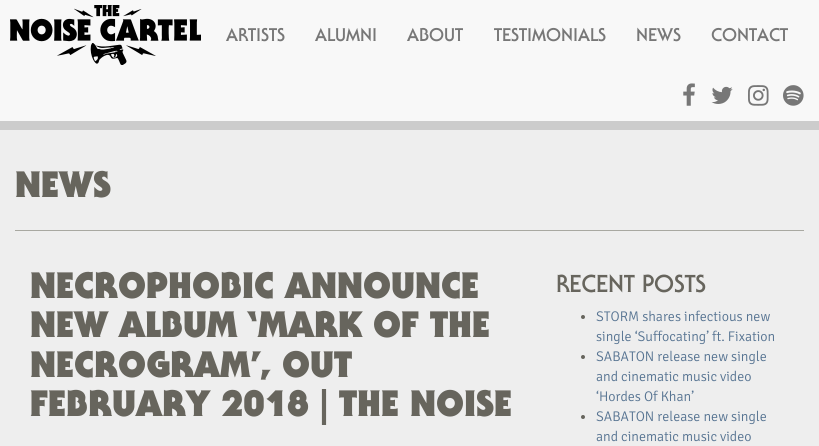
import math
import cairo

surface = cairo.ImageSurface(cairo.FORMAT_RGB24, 819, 446)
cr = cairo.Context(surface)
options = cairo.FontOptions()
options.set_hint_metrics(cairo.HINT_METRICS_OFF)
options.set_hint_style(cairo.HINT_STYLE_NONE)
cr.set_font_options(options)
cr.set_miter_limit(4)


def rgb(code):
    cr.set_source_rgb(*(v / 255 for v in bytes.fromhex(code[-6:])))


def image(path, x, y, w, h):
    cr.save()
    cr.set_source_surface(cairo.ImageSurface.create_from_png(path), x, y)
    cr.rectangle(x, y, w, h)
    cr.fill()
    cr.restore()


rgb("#cccccc")
cr.paint()
rgb("#f8f8f8")
cr.rectangle(0, 0, 819, 121)
cr.fill()
image("img/1.png", 10, 5, 191, 60)
image("img/2.png", 683, 83, 12, 23)
image("img/3.png", 711, 86, 22, 18)
image("img/4.png", 748, 85, 21, 21)
image("img/5.png", 783, 85, 21, 21)
rgb("#eeeeee")
cr.rectangle(0, 130, 819, 316)
cr.fill()
rgb("#a8a8a1")
cr.rectangle(15, 230, 789, 1)
cr.fill()
rgb("#67655d")
cr.arc(583, 317, 2, 0, 2 * math.pi)
cr.fill()
cr.arc(583, 357, 2, 0, 2 * math.pi)
cr.fill()
cr.arc(583, 417, 2, 0, 2 * math.pi)
cr.fill()
cr.select_font_face("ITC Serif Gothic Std", cairo.FONT_SLANT_NORMAL, cairo.FONT_WEIGHT_BOLD)
cr.set_font_size(18)
rgb("#777777")
for x, y, s in [
    (226, 41, "ARTISTS"),
    (315, 41, "ALUMNI"),
    (407, 41, "ABOUT"),
    (494, 41, "TESTIMONIALS"),
    (636, 41, "NEWS"),
    (711, 41, "CONTACT"),
]:
    cr.move_to(x, y)
    cr.show_text(s)
cr.select_font_face("ITC Serif Gothic Std Black")
cr.set_font_size(36)
rgb("#67655d")
for x, y, s in [
    (15, 197, "NEWS"),
    (30, 298, "NECROPHOBIC ANNOUNCE"),
    (30, 337, "NEW ALBUM ‘MARK OF THE"),
    (30, 377, "NECROGRAM’, OUT"),
    (30, 416, "FEBRUARY 2018 | THE NOISE"),
]:
    cr.move_to(x, y)
    cr.show_text(s)
cr.select_font_face("ITC Serif Gothic Std", cairo.FONT_SLANT_NORMAL, cairo.FONT_WEIGHT_BOLD)
cr.set_font_size(24)
cr.move_to(556, 292)
cr.show_text("RECENT POSTS")
cr.select_font_face("Signika Light")
cr.set_font_size(14)
rgb("#577492")
for x, y, s in [
    (596, 321, "STORM shares infectious new"),
    (596, 341, "single ‘Suffocating’ ft. Fixation"),
    (596, 361, "SABATON release new single"),
    (596, 381, "and cinematic music video"),
    (596, 401, "‘Hordes Of Khan’"),
    (596, 421, "SABATON release new single"),
    (596, 441, "and cinematic music video"),
]:
    cr.move_to(x, y)
    cr.show_text(s)
surface.write_to_png("page.png")
